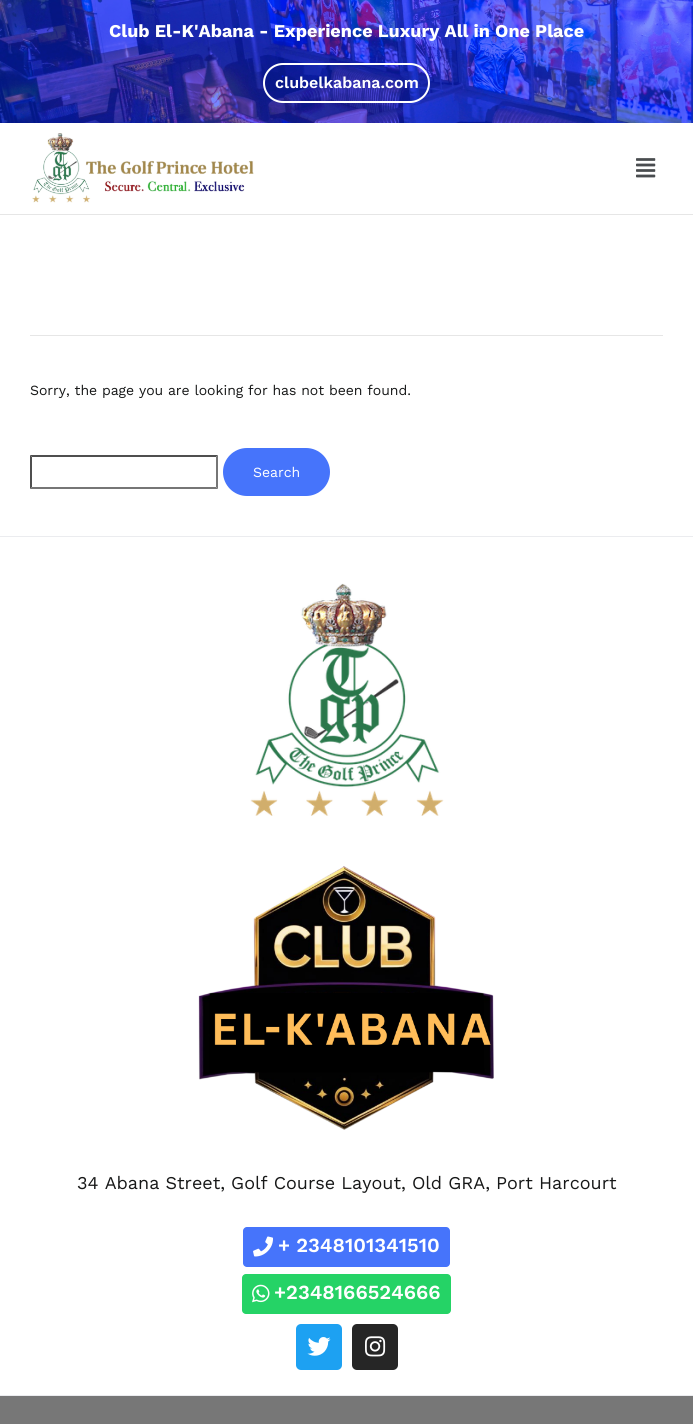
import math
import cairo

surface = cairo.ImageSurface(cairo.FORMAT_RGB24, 693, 1424)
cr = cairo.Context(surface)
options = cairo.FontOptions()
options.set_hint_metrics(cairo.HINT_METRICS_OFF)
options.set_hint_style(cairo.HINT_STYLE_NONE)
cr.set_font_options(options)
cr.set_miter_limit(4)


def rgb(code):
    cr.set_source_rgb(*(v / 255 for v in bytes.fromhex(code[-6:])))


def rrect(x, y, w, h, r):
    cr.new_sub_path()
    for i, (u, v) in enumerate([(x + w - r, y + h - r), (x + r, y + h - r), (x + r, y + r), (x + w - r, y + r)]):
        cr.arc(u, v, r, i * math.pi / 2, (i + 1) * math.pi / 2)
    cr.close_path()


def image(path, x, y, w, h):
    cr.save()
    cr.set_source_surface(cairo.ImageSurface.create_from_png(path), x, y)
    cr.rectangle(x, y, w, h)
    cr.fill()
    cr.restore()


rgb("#ffffff")
cr.paint()
image("img/1.png", 0, 0, 693, 123)
rrect(264, 64, 165, 38, 19)
rgb("#ffffff")
cr.stroke()
rgb("#e6e6e6")
cr.rectangle(0, 214, 693, 1)
cr.fill()
image("img/2.png", 32, 133, 222, 70)
image("img/3.png", 636, 158, 20, 20)
cr.rectangle(30, 335, 633, 1)
cr.fill()
rgb("#4f4f4f")
cr.new_path()
cr.move_to(30, 455)
cr.line_to(218, 455)
cr.line_to(216, 457)
cr.line_to(32, 457)
cr.close_path()
cr.fill()
rgb("#767676")
cr.new_path()
cr.move_to(218, 455)
cr.line_to(218, 489)
cr.line_to(216, 487)
cr.line_to(216, 457)
cr.close_path()
cr.fill()
cr.new_path()
cr.move_to(218, 489)
cr.line_to(30, 489)
cr.line_to(32, 487)
cr.line_to(216, 487)
cr.close_path()
cr.fill()
rgb("#4f4f4f")
cr.new_path()
cr.move_to(30, 489)
cr.line_to(30, 455)
cr.line_to(32, 457)
cr.line_to(32, 487)
cr.close_path()
cr.fill()
rgb("#4674fb")
rrect(223, 448, 107, 48, 24)
cr.fill()
rgb("#ebecef")
cr.rectangle(0, 536, 693, 1)
cr.fill()
image("img/4.png", 250, 583, 194, 233)
image("img/5.png", 198, 866, 296, 264)
rgb("#4674fb")
rrect(243, 1227, 207, 40, 4)
cr.fill()
image("img/6.png", 253, 1236, 20, 21)
rgb("#25d366")
rrect(242, 1274, 209, 40, 4)
cr.fill()
image("img/7.png", 252, 1284, 18, 19)
rgb("#1da1f2")
rrect(296, 1324, 46, 46, 5)
cr.fill()
image("img/8.png", 307, 1337, 24, 19)
rgb("#262626")
rrect(352, 1324, 46, 46, 5)
cr.fill()
image("img/9.png", 365, 1336, 21, 21)
rgb("#777777")
cr.rectangle(0, 1396, 693, 28)
cr.fill()
rgb("#ebecef")
cr.rectangle(0, 1395, 693, 1)
cr.fill()
cr.select_font_face("Work Sans", cairo.FONT_SLANT_NORMAL, cairo.FONT_WEIGHT_BOLD)
cr.set_font_size(18)
rgb("#ffffff")
cr.move_to(109, 37)
cr.show_text("Club El-K'Abana - Experience Luxury All in One Place")
cr.select_font_face("Work Sans SemiBold")
cr.set_font_size(16)
cr.move_to(275, 88)
cr.show_text("clubelkabana.com")
cr.select_font_face("Work Sans")
cr.set_font_size(14)
rgb("#171818")
cr.move_to(30, 395)
cr.show_text("Sorry, the page you are looking for has not been found.")
rgb("#ffffff")
cr.move_to(253, 477)
cr.show_text("Search")
cr.set_font_size(18)
rgb("#171818")
cr.move_to(77, 1189)
cr.show_text("34 Abana Street, Golf Course Layout, Old GRA, Port Harcourt")
cr.select_font_face("Work Sans SemiBold")
cr.set_font_size(20)
rgb("#ffffff")
cr.move_to(278, 1252)
cr.show_text("+ 2348101341510")
cr.move_to(274, 1299)
cr.show_text("+2348166524666")
surface.write_to_png("page.png")
